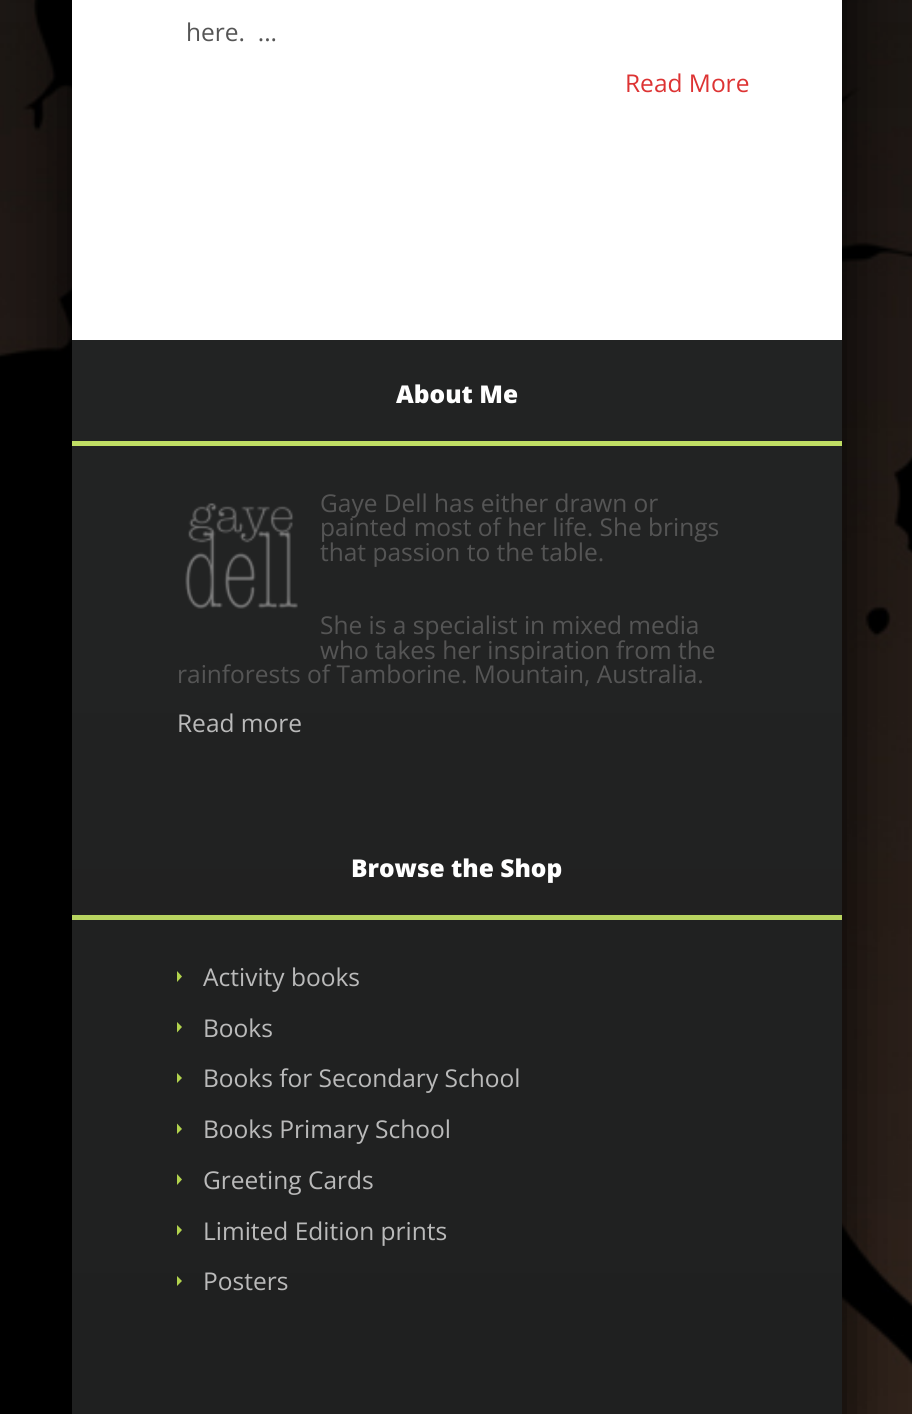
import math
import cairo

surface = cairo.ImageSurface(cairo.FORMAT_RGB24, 912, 1414)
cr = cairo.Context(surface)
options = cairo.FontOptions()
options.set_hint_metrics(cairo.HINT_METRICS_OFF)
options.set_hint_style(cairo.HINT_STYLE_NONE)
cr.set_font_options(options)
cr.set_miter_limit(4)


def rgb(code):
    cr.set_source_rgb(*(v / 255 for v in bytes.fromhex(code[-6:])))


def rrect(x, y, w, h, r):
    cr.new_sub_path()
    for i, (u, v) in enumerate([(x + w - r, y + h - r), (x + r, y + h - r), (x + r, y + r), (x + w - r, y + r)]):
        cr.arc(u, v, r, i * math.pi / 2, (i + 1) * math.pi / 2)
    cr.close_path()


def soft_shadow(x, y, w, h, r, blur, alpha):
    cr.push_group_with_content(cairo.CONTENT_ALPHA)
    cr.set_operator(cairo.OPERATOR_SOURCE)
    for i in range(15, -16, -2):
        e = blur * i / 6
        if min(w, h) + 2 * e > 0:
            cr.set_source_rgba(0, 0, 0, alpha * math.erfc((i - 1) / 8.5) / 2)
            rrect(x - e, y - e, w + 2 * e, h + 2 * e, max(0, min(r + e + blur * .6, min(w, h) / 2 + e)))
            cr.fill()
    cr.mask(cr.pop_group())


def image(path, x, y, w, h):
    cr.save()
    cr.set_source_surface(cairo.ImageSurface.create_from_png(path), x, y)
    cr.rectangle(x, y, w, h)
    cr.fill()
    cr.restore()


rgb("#ffffff")
cr.paint()
image("img/1.png", 0, 0, 912, 1414)
rgb("#000000")
soft_shadow(72, -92, 770, 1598, 0, 30.5, 0.9)
for x, y, w, h, color in [
    (72, 0, 770, 340, "#ffffff"),
    (72, 340, 770, 1074, "#222323"),
    (72, 441, 770, 5, "#c0de64"),
]:
    rgb(color)
    cr.rectangle(x, y, w, h)
    cr.fill()
image("img/2.png", 185, 503, 113, 106)
cr.rectangle(72, 915, 770, 5)
cr.fill()
gradient = cairo.LinearGradient(457, 340, 457, 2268)
gradient.add_color_stop_rgba(0, 0, 0, 0, 0)
gradient.add_color_stop_rgba(1, 0, 0, 0, 0.15)
cr.set_source(gradient)
cr.rectangle(72, 713, 770, 701)
cr.fill()
rgb("#b2d34d")
cr.new_path()
cr.move_to(177, 982)
cr.line_to(177, 971)
cr.line_to(182, 976.5)
cr.close_path()
cr.fill()
cr.new_path()
cr.move_to(177, 1032.5)
cr.line_to(177, 1022)
cr.line_to(182, 1027)
cr.close_path()
cr.fill()
cr.new_path()
cr.move_to(177, 1083)
cr.line_to(177, 1073)
cr.line_to(182, 1078)
cr.close_path()
cr.fill()
cr.new_path()
cr.move_to(177, 1134)
cr.line_to(177, 1123.5)
cr.line_to(182, 1129)
cr.close_path()
cr.fill()
cr.new_path()
cr.move_to(177, 1185)
cr.line_to(177, 1174)
cr.line_to(182, 1179.5)
cr.close_path()
cr.fill()
cr.new_path()
cr.move_to(177, 1235.5)
cr.line_to(177, 1225)
cr.line_to(182, 1230)
cr.close_path()
cr.fill()
cr.new_path()
cr.move_to(177, 1286)
cr.line_to(177, 1276)
cr.line_to(182, 1281)
cr.close_path()
cr.fill()
cr.select_font_face("Open Sans")
cr.set_font_size(24.5)
rgb("#555555")
cr.move_to(186, 41)
cr.show_text("here.  ...")
rgb("#dd3333")
cr.move_to(625, 92)
cr.show_text("Read More")
cr.select_font_face("Open Sans ExtraBold")
rgb("#ffffff")
cr.move_to(396, 403)
cr.show_text("About Me")
cr.select_font_face("Open Sans")
rgb("#555555")
for x, y, s in [
    (320, 512, "Gaye Dell has either drawn or"),
    (320, 536, "painted most of her life. She brings"),
    (320, 561, "that passion to the table."),
    (320, 634, "She is a specialist in mixed media"),
    (320, 659, "who takes her inspiration from the"),
    (177, 683, "rainforests of Tamborine. Mountain, Australia."),
]:
    cr.move_to(x, y)
    cr.show_text(s)
rgb("#bababa")
cr.move_to(177, 732)
cr.show_text("Read more")
cr.select_font_face("Open Sans ExtraBold")
rgb("#ffffff")
cr.move_to(351, 877)
cr.show_text("Browse the Shop")
cr.select_font_face("Open Sans")
rgb("#bababa")
for x, y, s in [
    (203, 986, "Activity books"),
    (203, 1037, "Books"),
    (203, 1087, "Books for Secondary School"),
    (203, 1138, "Books Primary School"),
    (203, 1189, "Greeting Cards"),
    (203, 1240, "Limited Edition prints"),
    (203, 1290, "Posters"),
]:
    cr.move_to(x, y)
    cr.show_text(s)
surface.write_to_png("page.png")
